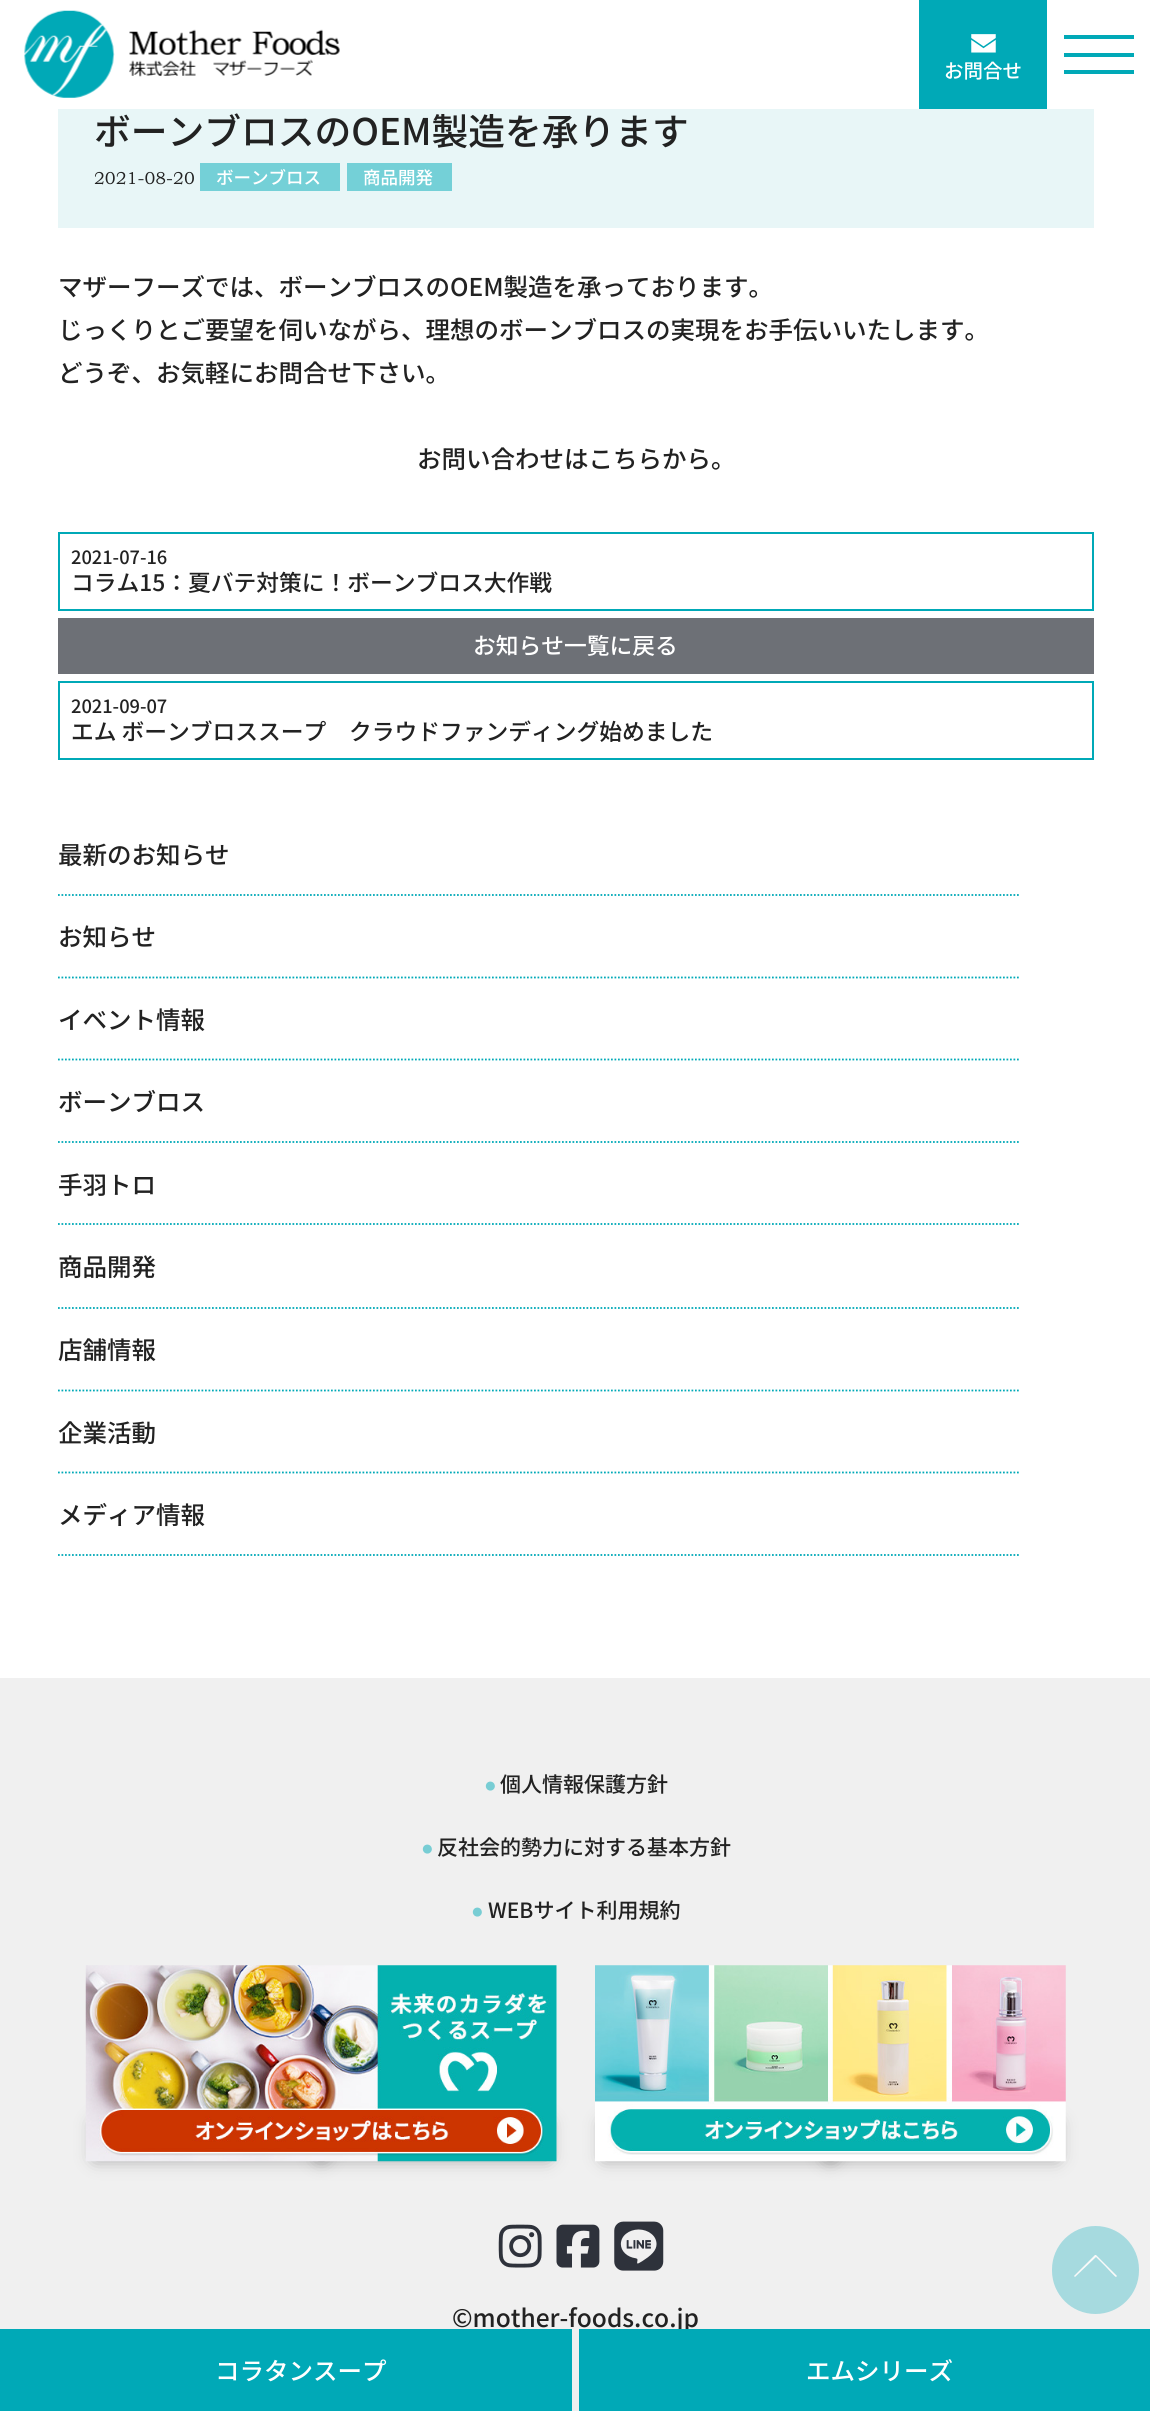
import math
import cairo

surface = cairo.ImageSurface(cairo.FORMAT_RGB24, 1150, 2411)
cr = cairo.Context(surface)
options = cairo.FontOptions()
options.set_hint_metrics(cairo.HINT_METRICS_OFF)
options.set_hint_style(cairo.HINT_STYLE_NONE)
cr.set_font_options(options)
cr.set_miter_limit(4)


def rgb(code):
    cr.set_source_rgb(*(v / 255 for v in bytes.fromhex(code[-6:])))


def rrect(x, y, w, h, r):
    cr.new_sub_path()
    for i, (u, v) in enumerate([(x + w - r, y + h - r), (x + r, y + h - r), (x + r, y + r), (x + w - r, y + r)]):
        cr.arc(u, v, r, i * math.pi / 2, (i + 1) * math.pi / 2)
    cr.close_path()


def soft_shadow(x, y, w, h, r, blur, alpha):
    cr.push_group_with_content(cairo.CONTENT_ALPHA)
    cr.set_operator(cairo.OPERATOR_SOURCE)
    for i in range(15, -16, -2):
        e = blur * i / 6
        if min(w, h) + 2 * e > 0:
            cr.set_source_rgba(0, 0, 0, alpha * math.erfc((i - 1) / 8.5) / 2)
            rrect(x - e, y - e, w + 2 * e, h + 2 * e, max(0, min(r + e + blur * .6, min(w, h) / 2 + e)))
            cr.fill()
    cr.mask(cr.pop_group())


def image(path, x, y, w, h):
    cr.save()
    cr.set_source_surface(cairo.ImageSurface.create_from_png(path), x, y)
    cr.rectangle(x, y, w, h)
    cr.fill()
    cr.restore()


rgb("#ffffff")
cr.paint()
image("img/1.png", 24, 10, 316, 88)
rgb("#00a9b7")
cr.rectangle(919, 0, 128, 109)
cr.fill()
image("img/2.png", 971, 34, 25, 19)
for x, y, w, h, color in [
    (1064, 53, 70, 4, "#00a9b7"),
    (1064, 35, 70, 4, "#00a9b7"),
    (1064, 70, 70, 4, "#00a9b7"),
    (58, 109, 1036, 119, "#e8f6f7"),
    (200, 163, 140, 28, "#74d0d7"),
    (347, 163, 105, 28, "#74d0d7"),
]:
    rgb(color)
    cr.rectangle(x, y, w, h)
    cr.fill()
cr.rectangle(59, 533, 1034, 77)
rgb("#00a9b7")
cr.stroke()
rgb("#6d7076")
cr.rectangle(58, 618, 1036, 56)
cr.fill()
cr.rectangle(59, 682, 1034, 77)
rgb("#00a9b7")
cr.stroke()
cr.new_path()
cr.move_to(58, 895)
cr.line_to(1020, 895)
cr.set_line_width(1.8)
cr.set_dash([1.75, 1.75])
cr.stroke()
cr.new_path()
cr.move_to(58, 977.5)
cr.line_to(1020, 977.5)
cr.stroke()
cr.new_path()
cr.move_to(58, 1059.5)
cr.line_to(1020, 1059.5)
cr.stroke()
cr.new_path()
cr.move_to(58, 1142)
cr.line_to(1020, 1142)
cr.stroke()
cr.new_path()
cr.move_to(58, 1224)
cr.line_to(1020, 1224)
cr.stroke()
cr.new_path()
cr.move_to(58, 1308)
cr.line_to(1020, 1308)
cr.stroke()
cr.new_path()
cr.move_to(58, 1390.5)
cr.line_to(1020, 1390.5)
cr.stroke()
cr.new_path()
cr.move_to(58, 1472.5)
cr.line_to(1020, 1472.5)
cr.stroke()
cr.new_path()
cr.move_to(58, 1555)
cr.line_to(1020, 1555)
cr.stroke()
rgb("#f0f0f0")
cr.rectangle(0, 1678, 1150, 733)
cr.fill()
rgb("#000000")
soft_shadow(95, 2123, 231, 35, 0, 9, 0.4)
soft_shadow(317, 2123, 231, 35, 0, 9, 0.4)
image("img/3.png", 85, 1965, 472, 197)
soft_shadow(604, 2123, 231, 35, 0, 9, 0.4)
soft_shadow(826, 2123, 231, 35, 0, 9, 0.4)
image("img/4.png", 595, 1965, 471, 197)
image("img/5.png", 498, 2224, 44, 44)
image("img/6.png", 556, 2224, 44, 44)
image("img/7.png", 614, 2221, 50, 50)
rgb("#a6dadf")
rrect(1052, 2226, 87, 88, 43.5)
cr.fill()
rgb("#f9f9f9")
cr.new_path()
cr.move_to(1095, 2255)
cr.line_to(1096, 2255)
cr.line_to(1117, 2276)
cr.line_to(1116, 2277)
cr.curve_to(1115, 2277, 1107, 2268, 1106, 2267)
cr.line_to(1096, 2257)
cr.line_to(1075, 2277)
cr.line_to(1074, 2276)
cr.close_path()
cr.fill()
cr.select_font_face("Noto Sans JP Medium")
cr.set_font_size(19.5)
rgb("#ffffff")
cr.move_to(944, 78)
cr.show_text("お問合せ")
cr.set_font_size(36.75)
rgb("#222222")
cr.move_to(94, 145)
cr.show_text("ボーンブロスのOEM製造を承ります")
cr.select_font_face("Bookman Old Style")
cr.set_font_size(17.5)
cr.move_to(94, 184)
cr.show_text("2021-08-20")
cr.select_font_face("Noto Sans JP Medium")
rgb("#ffffff")
cr.move_to(216, 184)
cr.show_text("ボーンブロス")
cr.move_to(363, 184)
cr.show_text("商品開発")
cr.set_font_size(24.5)
rgb("#222222")
for x, y, s in [
    (58, 296, "マザーフーズでは、ボーンブロスのOEM製造を承っております。"),
    (58, 339, "じっくりとご要望を伺いながら、理想のボーンブロスの実現をお手伝いいたします。"),
    (58, 382, "どうぞ、お気軽にお問合せ下さい。"),
    (417, 468, "お問い合わせはこちらから。"),
]:
    cr.move_to(x, y)
    cr.show_text(s)
cr.set_font_size(18.25)
cr.move_to(71, 564)
cr.show_text("2021-07-16")
cr.set_font_size(22.75)
cr.move_to(71, 591)
cr.show_text("コラム15：夏バテ対策に！ボーンブロス大作戦")
rgb("#ffffff")
cr.move_to(473, 654)
cr.show_text("お知らせ一覧に戻る")
cr.set_font_size(18.25)
rgb("#222222")
cr.move_to(71, 713)
cr.show_text("2021-09-07")
cr.set_font_size(22.75)
cr.move_to(71, 740)
cr.show_text("エム ボーンブロススープ　クラウドファンディング始めました")
cr.set_font_size(24.5)
for x, y, s in [
    (58, 864, "最新のお知らせ"),
    (58, 946, "お知らせ"),
    (58, 1029, "イベント情報"),
    (58, 1111, "ボーンブロス"),
    (58, 1194, "手羽トロ"),
    (58, 1276, "商品開発"),
    (58, 1359, "店舗情報"),
    (58, 1442, "企業活動"),
    (58, 1524, "メディア情報"),
]:
    cr.move_to(x, y)
    cr.show_text(s)
cr.select_font_face("Liberation Sans")
cr.set_font_size(21)
rgb("#78cdd4")
cr.move_to(484, 1792)
cr.show_text("●")
cr.select_font_face("Noto Sans JP Medium")
rgb("#222222")
cr.move_to(500, 1792)
cr.show_text("個人情報保護方針")
cr.select_font_face("Liberation Sans")
rgb("#78cdd4")
cr.move_to(421, 1855)
cr.show_text("●")
cr.select_font_face("Noto Sans JP Medium")
rgb("#222222")
cr.move_to(437, 1855)
cr.show_text("反社会的勢力に対する基本方針")
cr.select_font_face("Liberation Sans")
rgb("#78cdd4")
cr.move_to(471, 1918)
cr.show_text("●")
cr.select_font_face("Noto Sans JP Medium")
rgb("#222222")
cr.move_to(488, 1918)
cr.show_text("WEBサイト利用規約")
cr.set_font_size(24.5)
cr.move_to(452, 2327)
cr.show_text("©mother-foods.co.jp")
rgb("#00a9b7")
cr.rectangle(0, 2329, 572, 82)
cr.fill()
rgb("#ffffff")
cr.move_to(215, 2380)
cr.show_text("コラタンスープ")
rgb("#00a9b7")
cr.rectangle(579, 2329, 571, 82)
cr.fill()
rgb("#ffffff")
cr.move_to(806, 2380)
cr.show_text("エムシリーズ")
surface.write_to_png("page.png")
